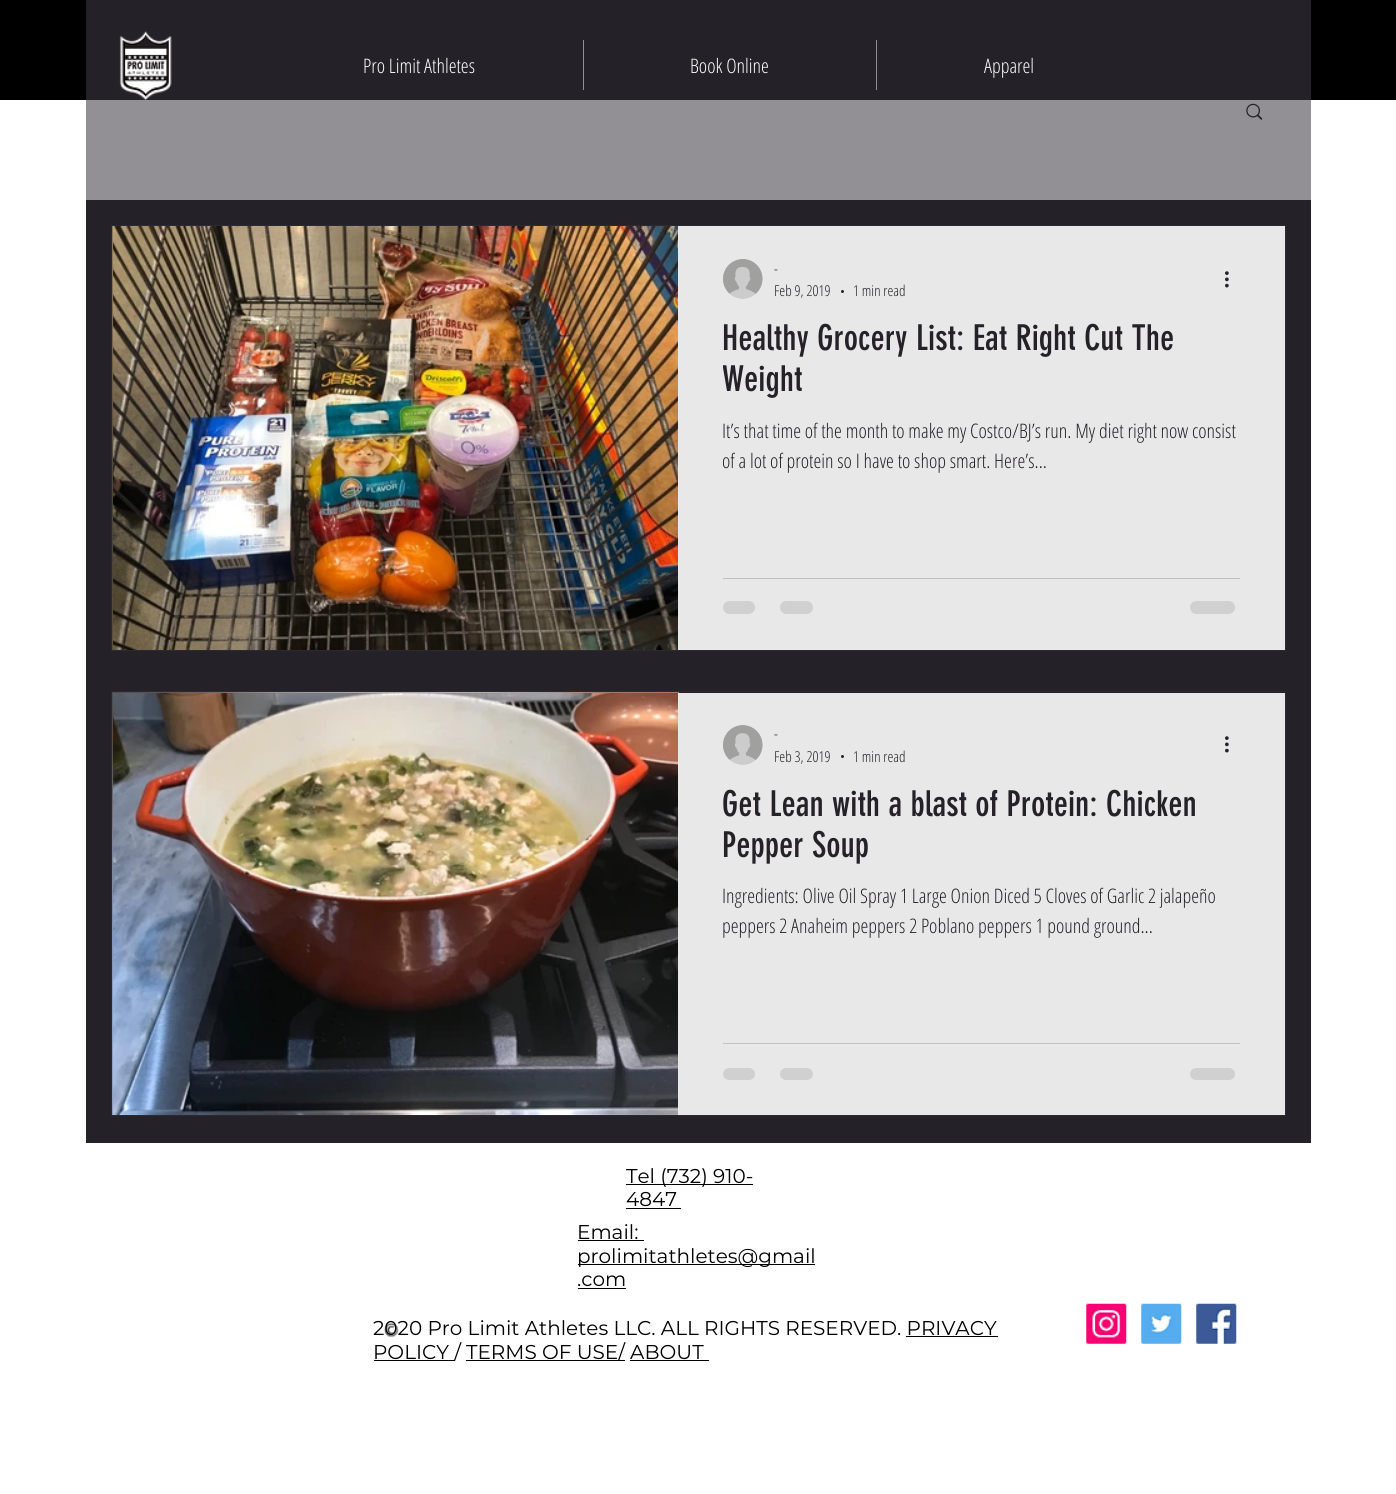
import math
import cairo

surface = cairo.ImageSurface(cairo.FORMAT_RGB24, 1396, 1494)
cr = cairo.Context(surface)
options = cairo.FontOptions()
options.set_hint_metrics(cairo.HINT_METRICS_OFF)
options.set_hint_style(cairo.HINT_STYLE_NONE)
cr.set_font_options(options)
cr.set_miter_limit(4)


def rgb(code):
    cr.set_source_rgb(*(v / 255 for v in bytes.fromhex(code[-6:])))


def rrect(x, y, w, h, r):
    cr.new_sub_path()
    for i, (u, v) in enumerate([(x + w - r, y + h - r), (x + r, y + h - r), (x + r, y + r), (x + w - r, y + r)]):
        cr.arc(u, v, r, i * math.pi / 2, (i + 1) * math.pi / 2)
    cr.close_path()


def image(path, x, y, w, h):
    cr.save()
    cr.set_source_surface(cairo.ImageSurface.create_from_png(path), x, y)
    cr.rectangle(x, y, w, h)
    cr.fill()
    cr.restore()


rgb("#ffffff")
cr.paint()
rgb("#000000")
cr.rectangle(0, 0, 1396, 100)
cr.fill()
rgb("#252128")
cr.rectangle(86, 0, 1225, 100)
cr.fill()
image("img/1.png", 119, 31, 53, 69)
for x, y, w, h, color in [
    (583, 40, 1, 50, "#929094"),
    (876, 40, 1, 50, "#929094"),
    (86, 200, 1225, 943, "#252128"),
    (86, 100, 1225, 100, "#929094"),
]:
    rgb(color)
    cr.rectangle(x, y, w, h)
    cr.fill()
image("img/2.png", 1246, 103, 17, 17)
cr.rectangle(111.5, 225.5, 1174, 425)
rgb("#2d2930")
cr.set_line_width(1)
cr.stroke()
image("img/3.png", 112, 226, 1, 424)
image("img/4.png", 113, 226, 565, 424)
rgb("#e8e8e8")
cr.rectangle(678, 226, 607, 424)
cr.fill()
image("img/5.png", 723, 259, 40, 40)
rgb("#252128")
cr.arc(842.5, 291.5, 1.5, 0, 2 * math.pi)
cr.fill()
image("img/6.png", 1225, 271, 4, 17)
rgb("#c1c0c2")
cr.rectangle(723, 578, 517, 1)
cr.fill()
rgb("#d1d0d1")
rrect(723, 601, 32, 13, 6.5)
cr.fill()
rrect(780, 601, 33, 13, 6.5)
cr.fill()
rrect(1190, 601, 45, 13, 6.5)
cr.fill()
cr.rectangle(111.5, 691.5, 1174, 424)
rgb("#2d2930")
cr.stroke()
image("img/7.png", 112, 692, 567, 423)
image("img/8.png", 113, 693, 565, 422)
rgb("#e8e8e8")
cr.rectangle(678, 693, 607, 422)
cr.fill()
image("img/9.png", 723, 725, 40, 40)
rgb("#252128")
cr.arc(842.5, 756.5, 1.5, 0, 2 * math.pi)
cr.fill()
image("img/6.png", 1225, 736, 4, 17)
rgb("#c1c0c2")
cr.rectangle(723, 1043, 517, 1)
cr.fill()
rgb("#d1d0d1")
rrect(723, 1068, 32, 12, 6)
cr.fill()
rrect(780, 1068, 33, 12, 6)
cr.fill()
rrect(1190, 1068, 45, 12, 6)
cr.fill()
for x, y, w, h, color in [
    (626, 1184, 127, 1, "#000000"),
    (626, 1208, 55, 1, "#000000"),
    (578, 1240, 66, 1, "#000000"),
    (578, 1264, 237, 1, "#000000"),
    (578, 1288, 48, 1, "#000000"),
    (906, 1336, 92, 1, "#000000"),
    (374, 1360, 81, 1, "#000000"),
    (466, 1360, 159, 1, "#000000"),
    (630, 1360, 79, 1, "#000000"),
]:
    rgb(color)
    cr.rectangle(x, y, w, h)
    cr.fill()
image("img/10.png", 1086, 1303, 41, 41)
image("img/11.png", 1141, 1303, 41, 41)
image("img/12.png", 1196, 1303, 41, 41)
image("img/13.png", 384, 1322, 15, 16)
cr.select_font_face("Open Sans Condensed Light")
cr.set_font_size(20)
rgb("#ffffff")
for x, y, s in [
    (363, 73, "Pro Limit Athletes"),
    (690, 73, "Book Online"),
    (984, 73, "Apparel"),
]:
    cr.move_to(x, y)
    cr.show_text(s)
cr.set_font_size(15)
rgb("#252128")
for x, y, s in [
    (774, 274, "-"),
    (774, 296, "Feb 9, 2019"),
    (853, 296, "1 min read"),
]:
    cr.move_to(x, y)
    cr.show_text(s)
cr.select_font_face("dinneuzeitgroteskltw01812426")
cr.set_font_size(35)
cr.move_to(722, 350)
cr.show_text("Healthy Grocery List: Eat Right Cut The")
cr.save()
cr.rectangle(723, 318, 517, 82)
cr.clip()
cr.move_to(722, 391)
cr.show_text("Weight")
cr.restore()
cr.select_font_face("Open Sans Condensed Light")
cr.set_font_size(20)
cr.move_to(722, 438)
cr.show_text("It’s that time of the month to make my Costco/BJ’s run. My diet right now consist")
cr.save()
cr.rectangle(723, 415, 517, 60)
cr.clip()
cr.move_to(722, 468)
cr.show_text("of a lot of protein so I have to shop smart. Here’s...")
cr.restore()
cr.set_font_size(15)
for x, y, s in [
    (774, 739, "-"),
    (774, 762, "Feb 3, 2019"),
    (853, 762, "1 min read"),
]:
    cr.move_to(x, y)
    cr.show_text(s)
cr.select_font_face("dinneuzeitgroteskltw01812426")
cr.set_font_size(35)
cr.move_to(722, 816)
cr.show_text("Get Lean with a blast of Protein: Chicken")
cr.move_to(722, 857)
cr.show_text("Pepper Soup")
cr.select_font_face("Open Sans Condensed Light")
cr.set_font_size(20)
cr.move_to(722, 903)
cr.show_text("Ingredients: Olive Oil Spray 1 Large Onion Diced 5 Cloves of Garlic 2 jalapeño")
cr.move_to(722, 933)
cr.show_text("peppers 2 Anaheim peppers 2 Poblano peppers 1 pound ground...")
cr.select_font_face("Montserrat")
rgb("#000000")
for x, y, s in [
    (626, 1183, "Tel (732) 910-"),
    (626, 1206, "4847"),
    (577, 1239, "Email:"),
    (577, 1263, "prolimitathletes@gmail"),
    (577, 1286, ".com"),
    (373, 1335, "2020 Pro Limit Athletes LLC. ALL RIGHTS RESERVED. PRIVACY"),
    (373, 1359, "POLICY /"),
    (466, 1359, "TERMS OF USE/ ABOUT"),
]:
    cr.move_to(x, y)
    cr.show_text(s)
surface.write_to_png("page.png")
